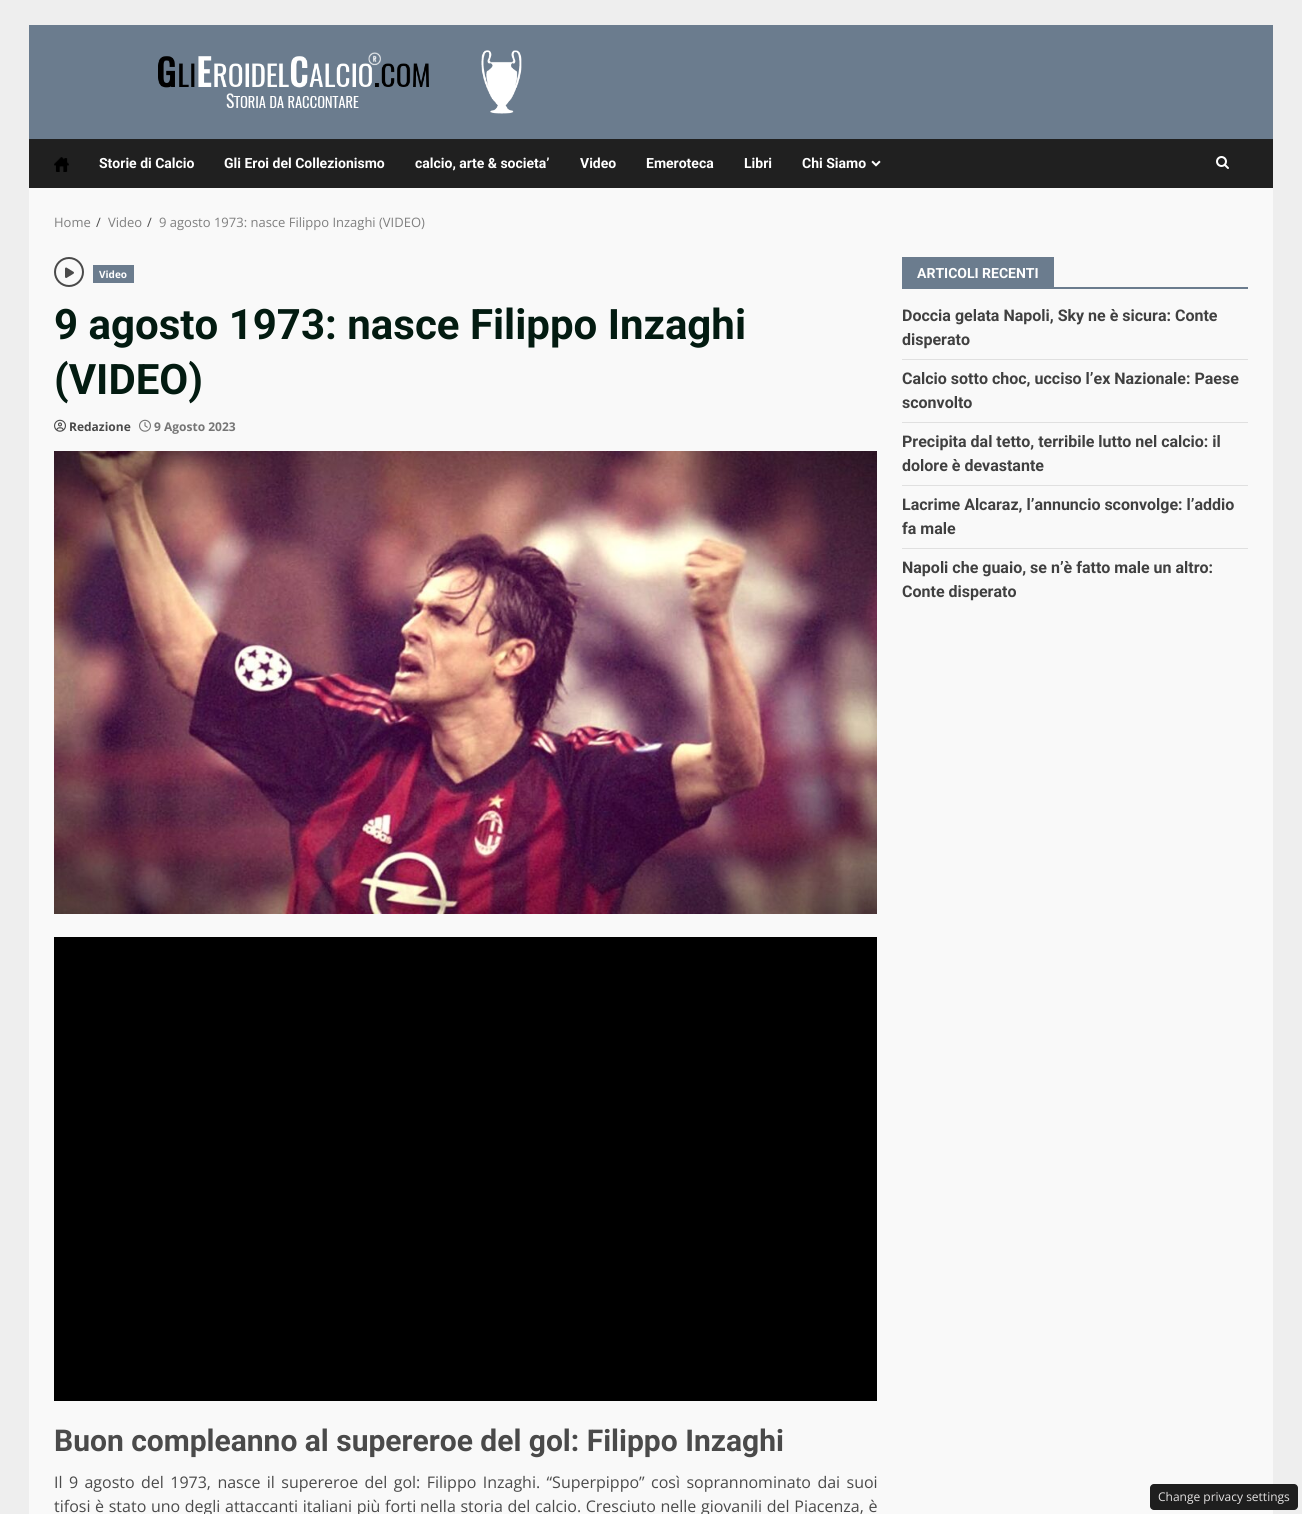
import math
import cairo

surface = cairo.ImageSurface(cairo.FORMAT_RGB24, 1302, 1514)
cr = cairo.Context(surface)
options = cairo.FontOptions()
options.set_hint_metrics(cairo.HINT_METRICS_OFF)
options.set_hint_style(cairo.HINT_STYLE_NONE)
cr.set_font_options(options)
cr.set_miter_limit(4)


def rgb(code):
    cr.set_source_rgb(*(v / 255 for v in bytes.fromhex(code[-6:])))


def tracked(x, y, s, letter, word):
    cr.move_to(x, y)
    for ch in s:
        cr.show_text(ch)
        cr.rel_move_to(letter + word * (ch == ' '), 0)


def rrect(x, y, w, h, r):
    cr.new_sub_path()
    for i, (u, v) in enumerate([(x + w - r, y + h - r), (x + r, y + h - r), (x + r, y + r), (x + w - r, y + r)]):
        cr.arc(u, v, r, i * math.pi / 2, (i + 1) * math.pi / 2)
    cr.close_path()


def image(path, x, y, w, h):
    cr.save()
    cr.set_source_surface(cairo.ImageSurface.create_from_png(path), x, y)
    cr.rectangle(x, y, w, h)
    cr.fill()
    cr.restore()


rgb("#eeeeee")
cr.paint()
rgb("#f9f9f9")
cr.rectangle(29, 188, 1244, 1326)
cr.fill()
rgb("#6b7c8e")
cr.rectangle(29, 25, 1244, 114)
cr.fill()
image("img/1.png", 158, 50, 364, 64)
rgb("#202020")
cr.rectangle(29, 139, 1244, 49)
cr.fill()
image("img/2.png", 54, 157, 15, 15)
image("img/3.png", 871, 160, 10, 7)
image("img/4.png", 1216, 156, 13, 13)
cr.arc(69, 272, 14, 0, 2 * math.pi)
rgb("#4a4a4a")
cr.stroke()
image("img/5.png", 65, 267, 9, 11)
rgb("#6b7c8e")
cr.rectangle(93, 265, 41, 18)
cr.fill()
image("img/6.png", 54, 419, 12, 13)
image("img/7.png", 139, 419, 12, 13)
image("img/8.png", 54, 451, 823, 463)
for x, y, w, h, color in [
    (54, 937, 823, 464, "#000000"),
    (902, 287, 346, 2, "#6b7c8e"),
    (902, 257, 152, 30, "#6b7c8e"),
    (902, 359, 346, 1, "#e0e0e0"),
    (902, 422, 346, 1, "#e0e0e0"),
    (902, 485, 346, 1, "#e0e0e0"),
    (902, 548, 346, 1, "#e0e0e0"),
]:
    rgb(color)
    cr.rectangle(x, y, w, h)
    cr.fill()
rgb("#1e1e1e")
rrect(1150, 1484, 148, 26, 4)
cr.fill()
cr.select_font_face("Roboto", cairo.FONT_SLANT_NORMAL, cairo.FONT_WEIGHT_BOLD)
cr.set_font_size(14)
rgb("#ffffff")
for x, y, s in [
    (99, 168, "Storie di Calcio"),
    (224, 168, "Gli Eroi del Collezionismo"),
    (415, 168, "calcio, arte & societa’"),
    (580, 168, "Video"),
    (646, 168, "Emeroteca"),
    (744, 168, "Libri"),
    (802, 168, "Chi Siamo"),
]:
    cr.move_to(x, y)
    cr.show_text(s)
cr.select_font_face("Open Sans")
cr.set_font_size(13)
rgb("#7f7f7f")
cr.move_to(54, 227)
cr.show_text("Home")
rgb("#4a4a4a")
cr.move_to(96, 227)
cr.show_text("/")
rgb("#7f7f7f")
cr.move_to(108, 227)
cr.show_text("Video")
rgb("#4a4a4a")
cr.move_to(147, 227)
cr.show_text("/")
rgb("#7f7f7f")
cr.move_to(159, 227)
cr.show_text("9 agosto 1973: nasce Filippo Inzaghi (VIDEO)")
cr.select_font_face("Open Sans", cairo.FONT_SLANT_NORMAL, cairo.FONT_WEIGHT_BOLD)
cr.set_font_size(10)
rgb("#ffffff")
cr.move_to(99, 278)
cr.show_text("Video")
cr.select_font_face("Roboto", cairo.FONT_SLANT_NORMAL, cairo.FONT_WEIGHT_BOLD)
cr.set_font_size(42)
rgb("#031b11")
cr.move_to(54, 339)
cr.show_text("9 agosto 1973: nasce Filippo Inzaghi")
cr.move_to(54, 394)
cr.show_text("(VIDEO)")
cr.select_font_face("Open Sans", cairo.FONT_SLANT_NORMAL, cairo.FONT_WEIGHT_BOLD)
cr.set_font_size(12)
rgb("#4a4a4a")
cr.move_to(69, 431)
cr.show_text("Redazione")
rgb("#767676")
cr.move_to(154, 431)
cr.show_text("9 Agosto 2023")
cr.select_font_face("Roboto", cairo.FONT_SLANT_NORMAL, cairo.FONT_WEIGHT_BOLD)
cr.set_font_size(30)
rgb("#4a4a4a")
cr.move_to(54, 1451)
cr.show_text("Buon compleanno al supereroe del gol: Filippo Inzaghi")
cr.select_font_face("Open Sans")
cr.set_font_size(16)
tracked(54, 1488, "Il 9 agosto del 1973, nasce il supereroe del gol: Filippo Inzaghi. “Superpippo” così soprannominato dai suoi", 0, 2.25)
tracked(54, 1512, "tifosi è stato uno degli attaccanti italiani più forti", 0, 0.5)
tracked(420, 1512, "nella storia del calcio. Cresciuto nelle giovanili del Piacenza, è", 0, 0.5)
cr.select_font_face("Roboto", cairo.FONT_SLANT_NORMAL, cairo.FONT_WEIGHT_BOLD)
cr.set_font_size(14)
rgb("#ffffff")
cr.move_to(917, 278)
cr.show_text("ARTICOLI RECENTI")
cr.set_font_size(16)
rgb("#404040")
for x, y, s in [
    (902, 321, "Doccia gelata Napoli, Sky ne è sicura: Conte"),
    (902, 345, "disperato"),
    (902, 384, "Calcio sotto choc, ucciso l’ex Nazionale: Paese"),
    (902, 408, "sconvolto"),
    (902, 447, "Precipita dal tetto, terribile lutto nel calcio: il"),
    (902, 471, "dolore è devastante"),
    (902, 510, "Lacrime Alcaraz, l’annuncio sconvolge: l’addio"),
    (902, 534, "fa male"),
    (902, 573, "Napoli che guaio, se n’è fatto male un altro:"),
    (902, 597, "Conte disperato"),
]:
    cr.move_to(x, y)
    cr.show_text(s)
cr.select_font_face("Open Sans")
cr.set_font_size(12)
rgb("#e3e1e1")
cr.move_to(1158, 1501)
cr.show_text("Change privacy settings")
surface.write_to_png("page.png")
